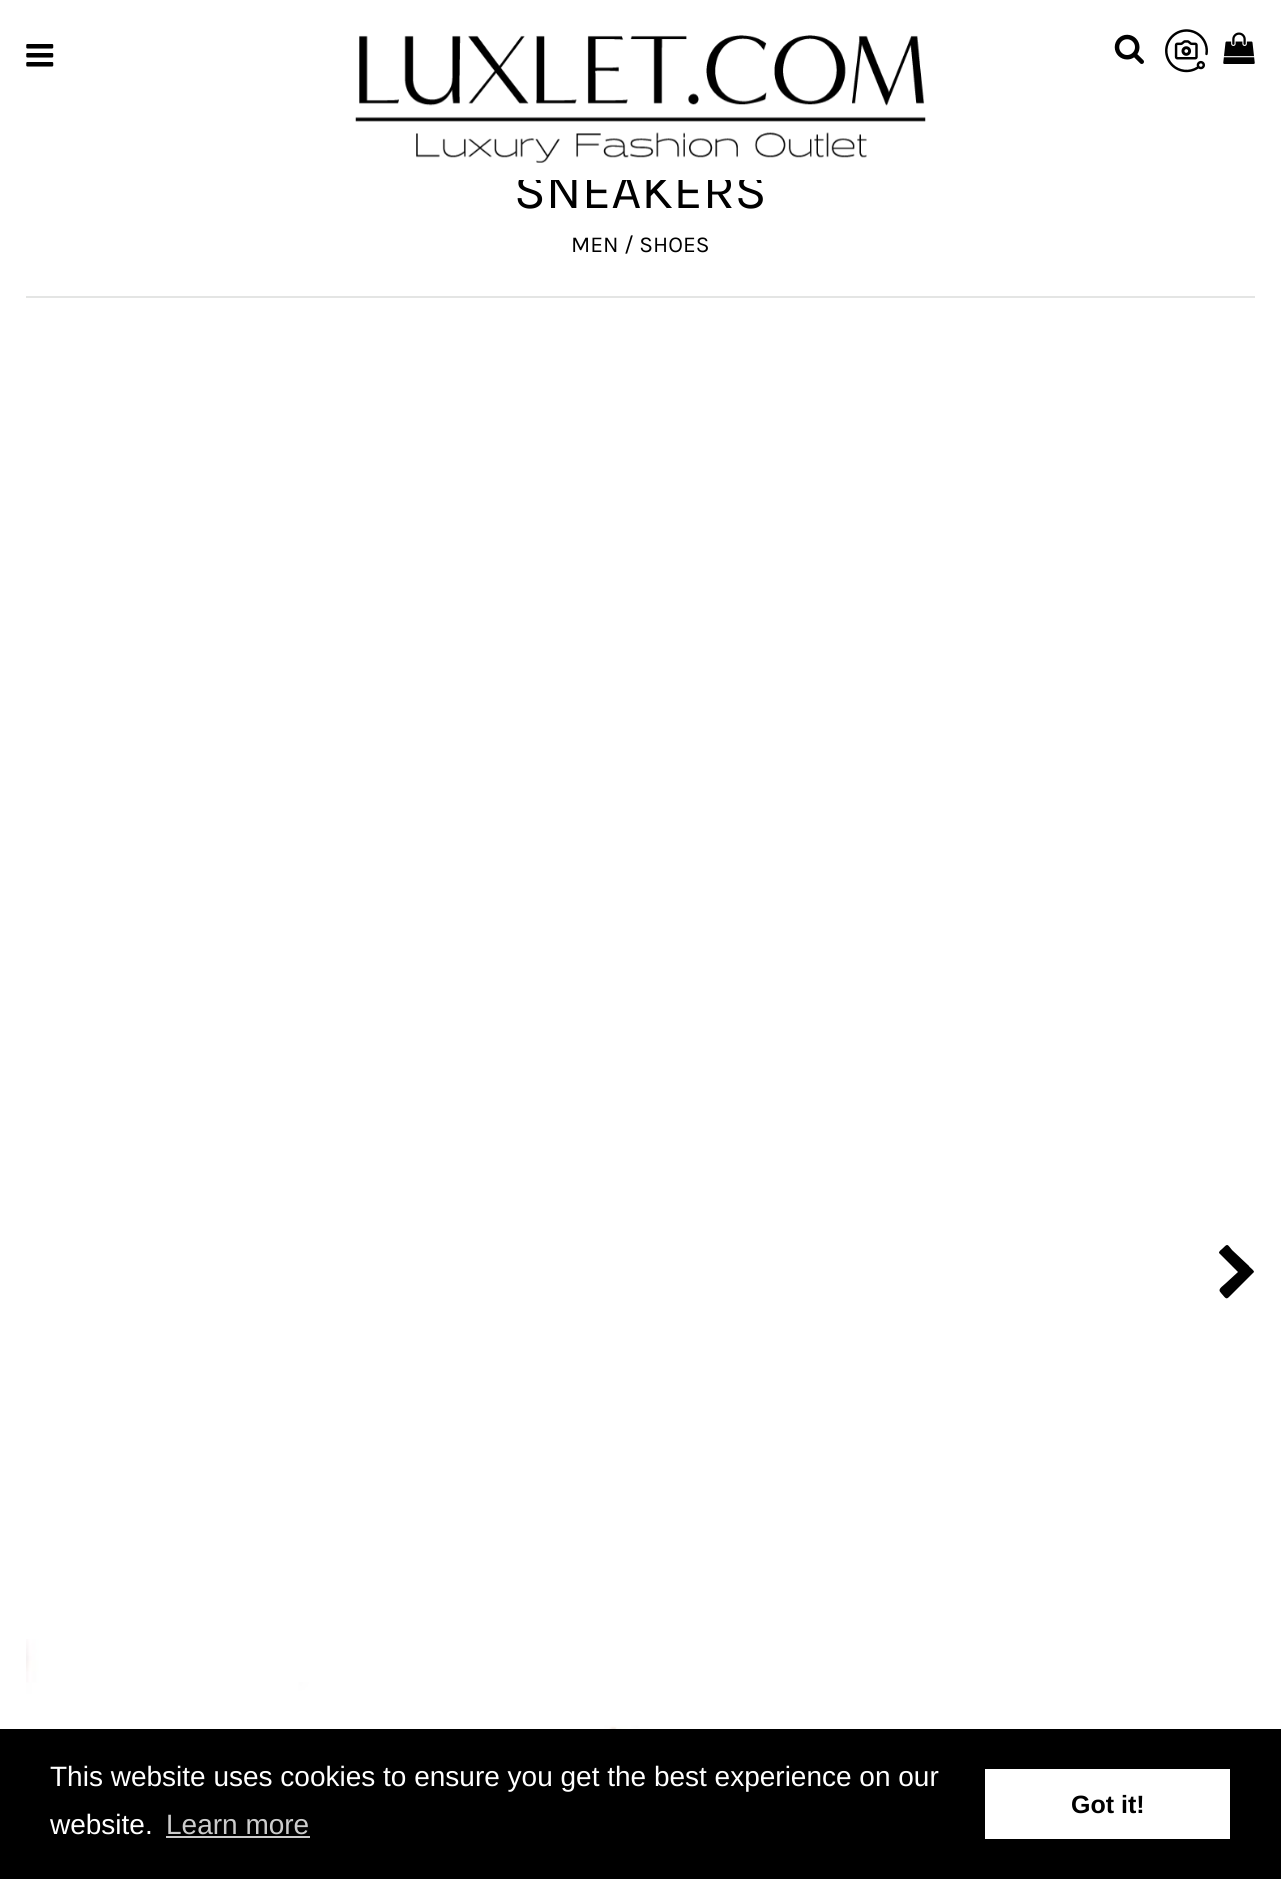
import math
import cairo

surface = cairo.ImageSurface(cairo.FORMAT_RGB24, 1281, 1879)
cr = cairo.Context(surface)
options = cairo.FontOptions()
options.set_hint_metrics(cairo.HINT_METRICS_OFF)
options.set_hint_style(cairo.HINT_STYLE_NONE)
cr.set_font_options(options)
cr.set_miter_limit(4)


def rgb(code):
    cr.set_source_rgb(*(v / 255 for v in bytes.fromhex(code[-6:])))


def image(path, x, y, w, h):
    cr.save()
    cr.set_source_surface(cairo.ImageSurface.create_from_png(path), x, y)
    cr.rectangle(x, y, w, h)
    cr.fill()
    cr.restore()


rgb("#ffffff")
cr.paint()
image("img/1.png", 26, 44, 28, 23)
image("img/2.png", 355, 35, 571, 128)
image("img/3.png", 1114, 34, 30, 30)
image("img/4.png", 1165, 29, 43, 44)
image("img/5.png", 1223, 32, 32, 32)
rgb("#e4e5e4")
cr.rectangle(26, 296, 1229, 2)
cr.fill()
rgb("#000000")
cr.new_path()
cr.move_to(1253, 1273)
cr.line_to(1232, 1294)
cr.curve_to(1226, 1300, 1227, 1300, 1221, 1293)
cr.curve_to(1217, 1289, 1222, 1287, 1226, 1283)
cr.line_to(1238, 1272)
cr.line_to(1219, 1253)
cr.curve_to(1219, 1251, 1221, 1250, 1222, 1249)
cr.curve_to(1228, 1243, 1227, 1244, 1232, 1250)
cr.line_to(1249, 1266)
cr.curve_to(1249, 1267, 1254, 1270, 1254, 1272)
cr.close_path()
cr.fill()
image("img/6.png", 26, 1639, 882, 90)
for x, y, w, h, color in [
    (0, 1729, 1281, 150, "#000000"),
    (166, 1836, 144, 2, "#cccccc"),
    (985, 1769, 245, 70, "#ffffff"),
]:
    rgb(color)
    cr.rectangle(x, y, w, h)
    cr.fill()
cr.select_font_face("Karla")
cr.set_font_size(52.5)
rgb("#000000")
cr.move_to(514, 208)
cr.show_text("SNEAKERS")
rgb("#ffffff")
cr.rectangle(519, 174, 243, 6)
cr.fill()
cr.set_font_size(22.75)
rgb("#000000")
cr.move_to(571, 252)
cr.show_text("MEN / SHOES")
cr.select_font_face("Liberation Sans")
cr.set_font_size(28)
rgb("#ffffff")
cr.move_to(50, 1786)
cr.show_text("This website uses cookies to ensure you get the best experience on our")
cr.move_to(50, 1834)
cr.show_text("website.")
rgb("#cccccc")
cr.move_to(166, 1834)
cr.show_text("Learn more")
cr.select_font_face("Liberation Sans", cairo.FONT_SLANT_NORMAL, cairo.FONT_WEIGHT_BOLD)
cr.set_font_size(25)
rgb("#000000")
cr.move_to(1071, 1813)
cr.show_text("Got it!")
surface.write_to_png("page.png")
